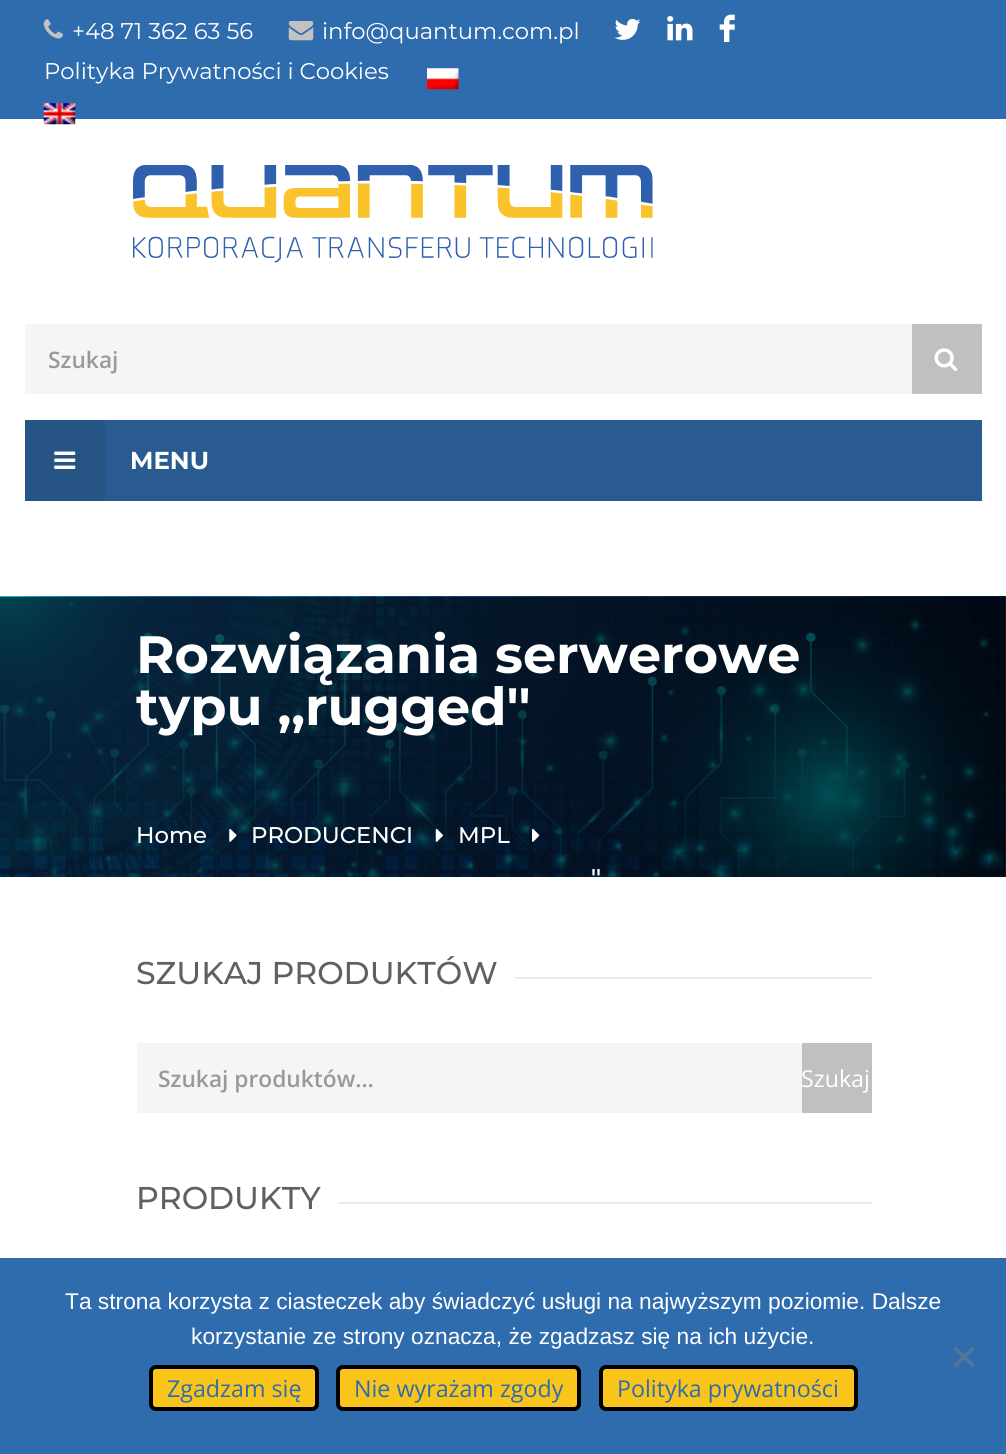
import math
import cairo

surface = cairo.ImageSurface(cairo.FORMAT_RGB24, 1006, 1454)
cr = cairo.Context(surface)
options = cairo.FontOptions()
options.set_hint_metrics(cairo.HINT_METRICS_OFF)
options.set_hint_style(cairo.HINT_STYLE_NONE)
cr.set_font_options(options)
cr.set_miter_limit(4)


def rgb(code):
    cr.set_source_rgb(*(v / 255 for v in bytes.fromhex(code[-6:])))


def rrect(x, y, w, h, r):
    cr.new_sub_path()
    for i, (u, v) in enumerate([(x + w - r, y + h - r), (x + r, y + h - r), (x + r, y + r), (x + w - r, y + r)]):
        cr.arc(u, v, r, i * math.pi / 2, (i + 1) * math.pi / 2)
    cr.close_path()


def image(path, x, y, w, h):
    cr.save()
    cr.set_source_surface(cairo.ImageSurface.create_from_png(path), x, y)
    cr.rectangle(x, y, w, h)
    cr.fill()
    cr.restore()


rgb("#ffffff")
cr.paint()
rgb("#2e6cae")
cr.rectangle(0, 0, 1006, 119)
cr.fill()
image("img/1.png", 43, 19, 20, 20)
image("img/2.png", 288, 21, 26, 20)
image("img/3.png", 614, 18, 27, 22)
image("img/4.png", 667, 16, 26, 25)
image("img/5.png", 719, 14, 16, 28)
image("img/6.png", 427, 68, 32, 22)
image("img/7.png", 43, 103, 33, 22)
image("img/8.png", 133, 165, 520, 98)
rgb("#f5f5f5")
cr.rectangle(25, 324, 887, 70)
cr.fill()
rgb("#c0c0c0")
cr.rectangle(912, 324, 70, 70)
cr.fill()
image("img/9.png", 934, 348, 24, 23)
rgb("#295b90")
cr.rectangle(105, 420, 877, 81)
cr.fill()
rgb("#265484")
cr.rectangle(25, 420, 80, 81)
cr.fill()
image("img/10.png", 54, 451, 22, 18)
image("img/11.png", 0, 596, 1006, 281)
image("img/12.png", 229, 828, 8, 14)
image("img/13.png", 435, 828, 8, 14)
image("img/14.png", 532, 828, 8, 14)
for x, y, w, h, color in [
    (515, 977, 357, 2, "#ebebeb"),
    (137, 1043, 665, 70, "#f5f5f5"),
    (802, 1043, 70, 70, "#c0c0c0"),
    (338, 1202, 534, 2, "#ebebeb"),
    (0, 1258, 1006, 196, "#2e6cae"),
]:
    rgb(color)
    cr.rectangle(x, y, w, h)
    cr.fill()
rgb("#577697")
cr.new_path()
cr.move_to(972.5, 1346.5)
cr.line_to(975, 1349)
cr.line_to(956, 1367.5)
cr.line_to(953.5, 1365)
cr.close_path()
cr.fill()
cr.new_path()
cr.move_to(953.5, 1349)
cr.line_to(956, 1346.5)
cr.line_to(975, 1365)
cr.line_to(972.5, 1367.5)
cr.close_path()
cr.fill()
rgb("#fac51a")
rrect(151, 1367, 166, 42, 5)
cr.fill_preserve()
rgb("#000000")
cr.set_line_width(4)
cr.stroke()
rgb("#fac51a")
rrect(338, 1367, 241, 42, 5)
cr.fill_preserve()
rgb("#000000")
cr.stroke()
rgb("#fac51a")
rrect(601, 1367, 255, 42, 5)
cr.fill_preserve()
rgb("#000000")
cr.stroke()
cr.select_font_face("Montserrat")
cr.set_font_size(22.75)
rgb("#ffffff")
for x, y, s in [
    (72, 39, "+48 71 362 63 56"),
    (322, 39, "info@quantum.com.pl"),
    (44, 79, "Polityka Prywatności i Cookies"),
]:
    cr.move_to(x, y)
    cr.show_text(s)
cr.select_font_face("Open Sans SemiBold")
rgb("#999999")
cr.move_to(48, 368)
cr.show_text("Szukaj")
cr.select_font_face("Montserrat", cairo.FONT_SLANT_NORMAL, cairo.FONT_WEIGHT_BOLD)
cr.set_font_size(24.5)
rgb("#ffffff")
cr.move_to(130, 469)
cr.show_text("MENU")
cr.set_font_size(52.5)
cr.move_to(136, 673)
cr.show_text("Rozwiązania serwerowe")
cr.move_to(136, 725)
cr.show_text("typu ,,rugged''")
cr.select_font_face("Montserrat Medium")
cr.set_font_size(22.75)
for x, y, s in [
    (136, 843, "Home"),
    (251, 843, "PRODUCENCI"),
    (458, 843, "MPL"),
]:
    cr.move_to(x, y)
    cr.show_text(s)
cr.select_font_face("Montserrat SemiBold")
cr.move_to(591, 885)
cr.show_text("''")
cr.select_font_face("Montserrat Medium")
cr.set_font_size(31.5)
rgb("#606060")
cr.move_to(136, 984)
cr.show_text("SZUKAJ PRODUKTÓW")
cr.select_font_face("Open Sans SemiBold")
cr.set_font_size(22.75)
rgb("#999999")
cr.move_to(158, 1087)
cr.show_text("Szukaj produktów…")
cr.select_font_face("Open Sans")
cr.set_font_size(23.25)
rgb("#ffffff")
cr.move_to(801, 1087)
cr.show_text("Szukaj")
cr.select_font_face("Montserrat Medium")
cr.set_font_size(31.5)
rgb("#606060")
cr.move_to(136, 1209)
cr.show_text("PRODUKTY")
cr.select_font_face("Liberation Sans")
cr.set_font_size(22.75)
rgb("#ffffff")
cr.move_to(65, 1309)
cr.show_text("Ta strona korzysta z ciasteczek aby świadczyć usługi na najwyższym poziomie. Dalsze")
cr.move_to(191, 1344)
cr.show_text("korzystanie ze strony oznacza, że zgadzasz się na ich użycie.")
cr.select_font_face("Open Sans")
cr.set_font_size(23.25)
rgb("#2e6cae")
for x, y, s in [
    (167, 1397, "Zgadzam się"),
    (354, 1397, "Nie wyrażam zgody"),
    (617, 1397, "Polityka prywatności"),
]:
    cr.move_to(x, y)
    cr.show_text(s)
surface.write_to_png("page.png")
